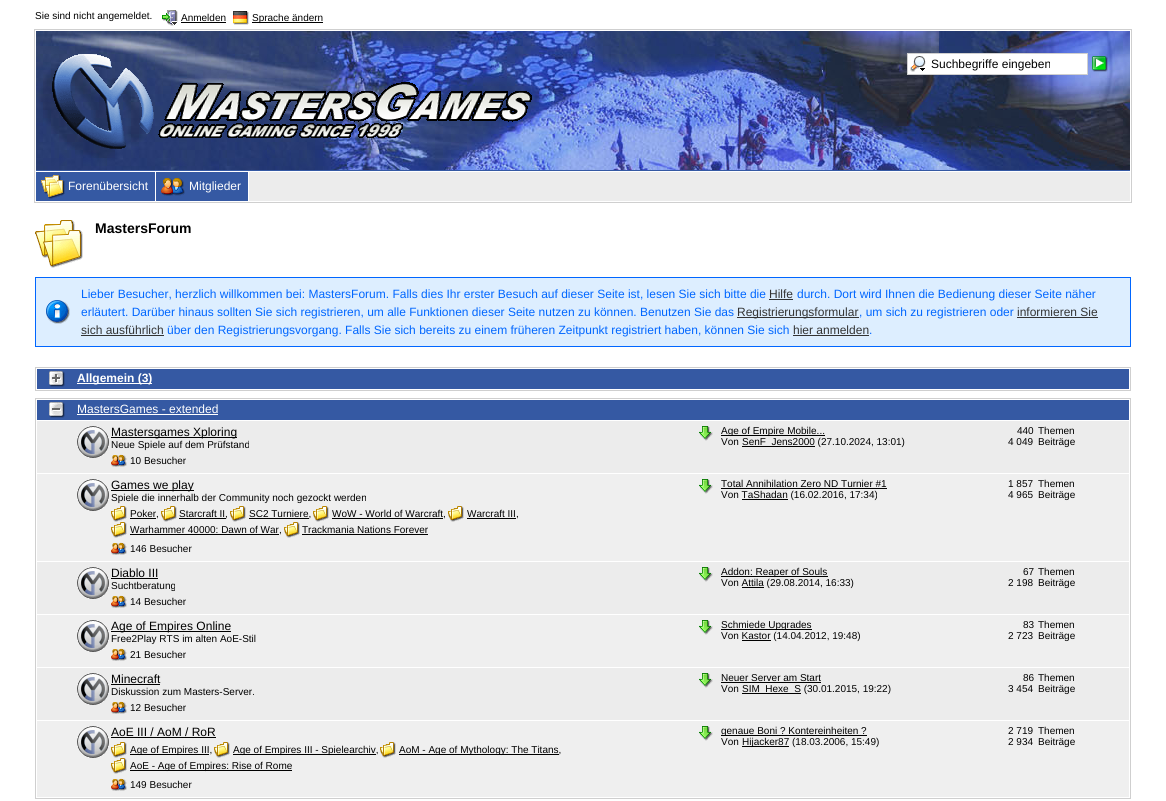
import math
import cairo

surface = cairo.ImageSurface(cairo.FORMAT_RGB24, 1166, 801)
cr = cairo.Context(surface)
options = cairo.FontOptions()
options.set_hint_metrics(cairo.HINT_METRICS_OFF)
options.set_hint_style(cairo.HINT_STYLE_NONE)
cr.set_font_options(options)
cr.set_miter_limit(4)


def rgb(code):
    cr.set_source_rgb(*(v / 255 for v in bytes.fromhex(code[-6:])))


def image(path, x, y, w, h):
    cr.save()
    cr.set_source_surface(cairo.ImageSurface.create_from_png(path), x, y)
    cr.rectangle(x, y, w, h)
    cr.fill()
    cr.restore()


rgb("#ffffff")
cr.paint()
image("img/1.png", 162, 10, 16, 16)
rgb("#000000")
cr.rectangle(181, 22, 45, 1)
cr.fill()
image("img/2.png", 233, 11, 16, 14)
cr.rectangle(252, 22, 71, 1)
cr.fill()
rgb("#3559a3")
cr.rectangle(36, 170, 1094, 1)
cr.fill()
image("img/3.png", 36, 31, 1094, 139)
for x, y, w, h, color in [
    (34, 29, 1098, 1, "#cfcfcf"),
    (1131, 171, 1, 32, "#cfcfcf"),
    (1131, 29, 1, 143, "#cfcfcf"),
    (34, 202, 1098, 1, "#cfcfcf"),
    (34, 171, 1, 32, "#cfcfcf"),
    (34, 29, 1, 143, "#cfcfcf"),
]:
    rgb(color)
    cr.rectangle(x, y, w, h)
    cr.fill()
image("img/4.png", 52, 54, 480, 95)
rgb("#ffffff")
cr.rectangle(908, 54, 179, 20)
cr.fill()
image("img/5.png", 910, 56, 16, 16)
cr.rectangle(907.5, 53.5, 180, 21)
rgb("#cfcfcf")
cr.set_line_width(1)
cr.stroke()
image("img/6.png", 1092, 56, 16, 16)
rgb("#ececec")
cr.rectangle(249, 172, 881, 29)
cr.fill()
rgb("#3559a3")
cr.rectangle(36, 172, 119, 29)
cr.fill()
image("img/7.png", 41, 175, 24, 24)
cr.rectangle(156, 172, 92, 29)
cr.fill()
image("img/8.png", 161, 178, 24, 18)
image("img/9.png", 35, 220, 48, 48)
rgb("#ddeeff")
cr.rectangle(36, 278, 1094, 68)
cr.fill()
image("img/10.png", 46, 300, 24, 24)
cr.rectangle(35.5, 277.5, 1095, 69)
rgb("#0066ff")
cr.stroke()
for x, y, w, h, color in [
    (769, 299, 24, 1, "#333333"),
    (737, 317, 122, 1, "#333333"),
    (1017, 317, 81, 1, "#333333"),
    (81, 335, 83, 1, "#333333"),
    (793, 335, 76, 1, "#333333"),
]:
    rgb(color)
    cr.rectangle(x, y, w, h)
    cr.fill()
cr.rectangle(35.5, 367.5, 1095, 23)
rgb("#cfcfcf")
cr.stroke()
rgb("#3559a3")
cr.rectangle(37, 369, 1092, 20)
cr.fill()
image("img/11.png", 49, 371, 16, 16)
rgb("#ffffff")
cr.rectangle(77, 383, 75, 1)
cr.fill()
cr.rectangle(35.5, 398.5, 1095, 400)
rgb("#cfcfcf")
cr.stroke()
rgb("#3559a3")
cr.rectangle(37, 400, 1092, 20)
cr.fill()
image("img/12.png", 49, 402, 16, 16)
rgb("#ffffff")
cr.rectangle(77, 414, 141, 1)
cr.fill()
rgb("#ececec")
cr.rectangle(37, 421, 1092, 52)
cr.fill()
image("img/13.png", 77, 426, 32, 32)
rgb("#000000")
cr.rectangle(111, 437, 126, 1)
cr.fill()
image("img/14.png", 111, 454, 16, 13)
image("img/15.png", 699, 426, 14, 15)
for x, y, w, h, color in [
    (721, 435, 104, 1, "#000000"),
    (742, 446, 73, 1, "#000000"),
    (37, 474, 1092, 87, "#efefef"),
]:
    rgb(color)
    cr.rectangle(x, y, w, h)
    cr.fill()
image("img/16.png", 77, 479, 32, 32)
rgb("#000000")
cr.rectangle(111, 490, 83, 1)
cr.fill()
image("img/17.png", 111, 506, 16, 16)
cr.rectangle(130, 518, 26, 1)
cr.fill()
image("img/17.png", 161, 506, 16, 16)
cr.rectangle(179, 518, 47, 1)
cr.fill()
image("img/17.png", 230, 506, 16, 16)
cr.rectangle(249, 518, 60, 1)
cr.fill()
image("img/17.png", 313, 506, 16, 16)
cr.rectangle(332, 518, 111, 1)
cr.fill()
image("img/17.png", 448, 506, 16, 16)
cr.rectangle(467, 518, 49, 1)
cr.fill()
image("img/17.png", 111, 522, 16, 16)
cr.rectangle(130, 534, 149, 1)
cr.fill()
image("img/17.png", 284, 522, 16, 16)
cr.rectangle(302, 534, 126, 1)
cr.fill()
image("img/18.png", 111, 542, 16, 13)
image("img/19.png", 699, 479, 14, 15)
for x, y, w, h, color in [
    (721, 488, 166, 1, "#000000"),
    (742, 499, 46, 1, "#000000"),
    (37, 562, 1092, 52, "#ececec"),
]:
    rgb(color)
    cr.rectangle(x, y, w, h)
    cr.fill()
image("img/13.png", 77, 567, 32, 32)
rgb("#000000")
cr.rectangle(111, 578, 47, 1)
cr.fill()
image("img/14.png", 111, 595, 16, 13)
image("img/15.png", 699, 567, 14, 15)
for x, y, w, h, color in [
    (721, 576, 107, 1, "#000000"),
    (742, 587, 22, 1, "#000000"),
    (37, 615, 1092, 52, "#efefef"),
]:
    rgb(color)
    cr.rectangle(x, y, w, h)
    cr.fill()
image("img/16.png", 77, 620, 32, 32)
rgb("#000000")
cr.rectangle(111, 631, 120, 1)
cr.fill()
image("img/18.png", 111, 648, 16, 13)
image("img/19.png", 699, 620, 14, 15)
for x, y, w, h, color in [
    (721, 629, 91, 1, "#000000"),
    (742, 640, 29, 1, "#000000"),
    (37, 668, 1092, 52, "#ececec"),
]:
    rgb(color)
    cr.rectangle(x, y, w, h)
    cr.fill()
image("img/13.png", 77, 673, 32, 32)
rgb("#000000")
cr.rectangle(111, 684, 49, 1)
cr.fill()
image("img/14.png", 111, 701, 16, 13)
image("img/15.png", 699, 673, 14, 15)
for x, y, w, h, color in [
    (721, 682, 100, 1, "#000000"),
    (742, 693, 59, 1, "#000000"),
    (37, 721, 1092, 76, "#efefef"),
]:
    rgb(color)
    cr.rectangle(x, y, w, h)
    cr.fill()
image("img/16.png", 77, 726, 32, 32)
rgb("#000000")
cr.rectangle(111, 737, 105, 1)
cr.fill()
image("img/17.png", 111, 742, 16, 16)
cr.rectangle(130, 754, 79, 1)
cr.fill()
image("img/17.png", 214, 742, 16, 16)
cr.rectangle(233, 754, 143, 1)
cr.fill()
image("img/17.png", 380, 742, 16, 16)
cr.rectangle(399, 754, 160, 1)
cr.fill()
image("img/17.png", 111, 758, 16, 16)
cr.rectangle(130, 770, 162, 1)
cr.fill()
image("img/18.png", 111, 778, 16, 13)
image("img/19.png", 699, 726, 14, 15)
cr.rectangle(721, 735, 146, 1)
cr.fill()
cr.rectangle(742, 746, 47, 1)
cr.fill()
cr.select_font_face("Liberation Sans")
cr.set_font_size(10)
for x, y, s in [
    (35, 19, "Sie sind nicht angemeldet."),
    (181, 21, "Anmelden"),
    (252, 21, "Sprache ändern"),
]:
    cr.move_to(x, y)
    cr.show_text(s)
cr.set_font_size(12)
cr.move_to(931, 68)
cr.show_text("Suchbegriffe eingeben")
rgb("#ffffff")
cr.move_to(68, 190)
cr.show_text("Forenübersicht")
cr.move_to(189, 190)
cr.show_text("Mitglieder")
cr.select_font_face("Liberation Sans", cairo.FONT_SLANT_NORMAL, cairo.FONT_WEIGHT_BOLD)
cr.set_font_size(14)
rgb("#000000")
cr.move_to(95, 233)
cr.show_text("MastersForum")
cr.select_font_face("Liberation Sans")
cr.set_font_size(12)
rgb("#0066ff")
cr.move_to(81, 298)
cr.show_text("Lieber Besucher, herzlich willkommen bei: MastersForum. Falls dies Ihr erster Besuch auf dieser Seite ist, lesen Sie sich bitte die")
rgb("#333333")
cr.move_to(769, 298)
cr.show_text("Hilfe")
rgb("#0066ff")
cr.move_to(797, 298)
cr.show_text("durch. Dort wird Ihnen die Bedienung dieser Seite näher")
cr.move_to(81, 316)
cr.show_text("erläutert. Darüber hinaus sollten Sie sich registrieren, um alle Funktionen dieser Seite nutzen zu können. Benutzen Sie das")
rgb("#333333")
cr.move_to(737, 316)
cr.show_text("Registrierungsformular")
rgb("#0066ff")
cr.move_to(859, 316)
cr.show_text(", um sich zu registrieren oder")
rgb("#333333")
cr.move_to(1017, 316)
cr.show_text("informieren Sie")
cr.move_to(81, 334)
cr.show_text("sich ausführlich")
rgb("#0066ff")
cr.move_to(167, 334)
cr.show_text("über den Registrierungsvorgang. Falls Sie sich bereits zu einem früheren Zeitpunkt registriert haben, können Sie sich")
rgb("#333333")
cr.move_to(793, 334)
cr.show_text("hier anmelden")
rgb("#0066ff")
cr.move_to(869, 334)
cr.show_text(".")
cr.select_font_face("Liberation Sans", cairo.FONT_SLANT_NORMAL, cairo.FONT_WEIGHT_BOLD)
rgb("#ffffff")
cr.move_to(77, 382)
cr.show_text("Allgemein (3)")
cr.select_font_face("Liberation Sans")
cr.move_to(77, 413)
cr.show_text("MastersGames - extended")
rgb("#000000")
cr.move_to(111, 436)
cr.show_text("Mastersgames Xploring")
cr.set_font_size(10)
for x, y, s in [
    (111, 448, "Neue Spiele auf dem Prüfstand"),
    (130, 464, "10 Besucher"),
    (721, 434, "Age of Empire Mobile..."),
    (721, 445, "Von"),
    (742, 445, "SenF_Jens2000 (27.10.2024, 13:01)"),
    (1017, 434, "440"),
    (1038, 434, "Themen"),
    (1008, 445, "4 049"),
    (1038, 445, "Beiträge"),
]:
    cr.move_to(x, y)
    cr.show_text(s)
cr.set_font_size(12)
cr.move_to(111, 489)
cr.show_text("Games we play")
cr.set_font_size(10)
for x, y, s in [
    (111, 501, "Spiele die innerhalb der Community noch gezockt werden"),
    (130, 517, "Poker,"),
    (179, 517, "Starcraft II,"),
    (249, 517, "SC2 Turniere,"),
    (332, 517, "WoW - World of Warcraft,"),
    (467, 517, "Warcraft III,"),
    (130, 533, "Warhammer 40000: Dawn of War,"),
    (302, 533, "Trackmania Nations Forever"),
    (130, 552, "146 Besucher"),
    (721, 487, "Total Annihilation Zero ND Turnier #1"),
    (721, 498, "Von TaShadan (16.02.2016, 17:34)"),
    (1008, 487, "1 857"),
    (1038, 487, "Themen"),
    (1008, 498, "4 965"),
    (1038, 498, "Beiträge"),
]:
    cr.move_to(x, y)
    cr.show_text(s)
cr.set_font_size(12)
cr.move_to(111, 577)
cr.show_text("Diablo III")
cr.set_font_size(10)
for x, y, s in [
    (111, 589, "Suchtberatung"),
    (130, 605, "14 Besucher"),
    (721, 575, "Addon: Reaper of Souls"),
    (721, 586, "Von Attila (29.08.2014, 16:33)"),
    (1023, 575, "67"),
    (1038, 575, "Themen"),
    (1008, 586, "2 198"),
    (1038, 586, "Beiträge"),
]:
    cr.move_to(x, y)
    cr.show_text(s)
cr.set_font_size(12)
cr.move_to(111, 630)
cr.show_text("Age of Empires Online")
cr.set_font_size(10)
for x, y, s in [
    (111, 642, "Free2Play RTS im alten AoE-Stil"),
    (130, 658, "21 Besucher"),
    (721, 628, "Schmiede Upgrades"),
    (721, 639, "Von Kastor (14.04.2012, 19:48)"),
    (1023, 628, "83"),
    (1038, 628, "Themen"),
    (1008, 639, "2 723"),
    (1038, 639, "Beiträge"),
]:
    cr.move_to(x, y)
    cr.show_text(s)
cr.set_font_size(12)
cr.move_to(111, 683)
cr.show_text("Minecraft")
cr.set_font_size(10)
for x, y, s in [
    (111, 695, "Diskussion zum Masters-Server."),
    (130, 711, "12 Besucher"),
    (721, 681, "Neuer Server am Start"),
    (721, 692, "Von"),
    (742, 692, "SIM_Hexe_S (30.01.2015, 19:22)"),
    (1023, 681, "86"),
    (1038, 681, "Themen"),
    (1008, 692, "3 454"),
    (1038, 692, "Beiträge"),
]:
    cr.move_to(x, y)
    cr.show_text(s)
cr.set_font_size(12)
cr.move_to(111, 736)
cr.show_text("AoE III / AoM / RoR")
cr.set_font_size(10)
for x, y, s in [
    (130, 753, "Age of Empires III,"),
    (233, 753, "Age of Empires III - Spielearchiv,"),
    (399, 753, "AoM - Age of Mythology: The Titans,"),
    (130, 769, "AoE - Age of Empires: Rise of Rome"),
    (130, 788, "149 Besucher"),
    (721, 734, "genaue Boni ? Kontereinheiten ?"),
    (721, 745, "Von"),
    (742, 745, "Hijacker87 (18.03.2006, 15:49)"),
    (1008, 734, "2 719"),
    (1038, 734, "Themen"),
    (1008, 745, "2 934"),
    (1038, 745, "Beiträge"),
]:
    cr.move_to(x, y)
    cr.show_text(s)
surface.write_to_png("page.png")
